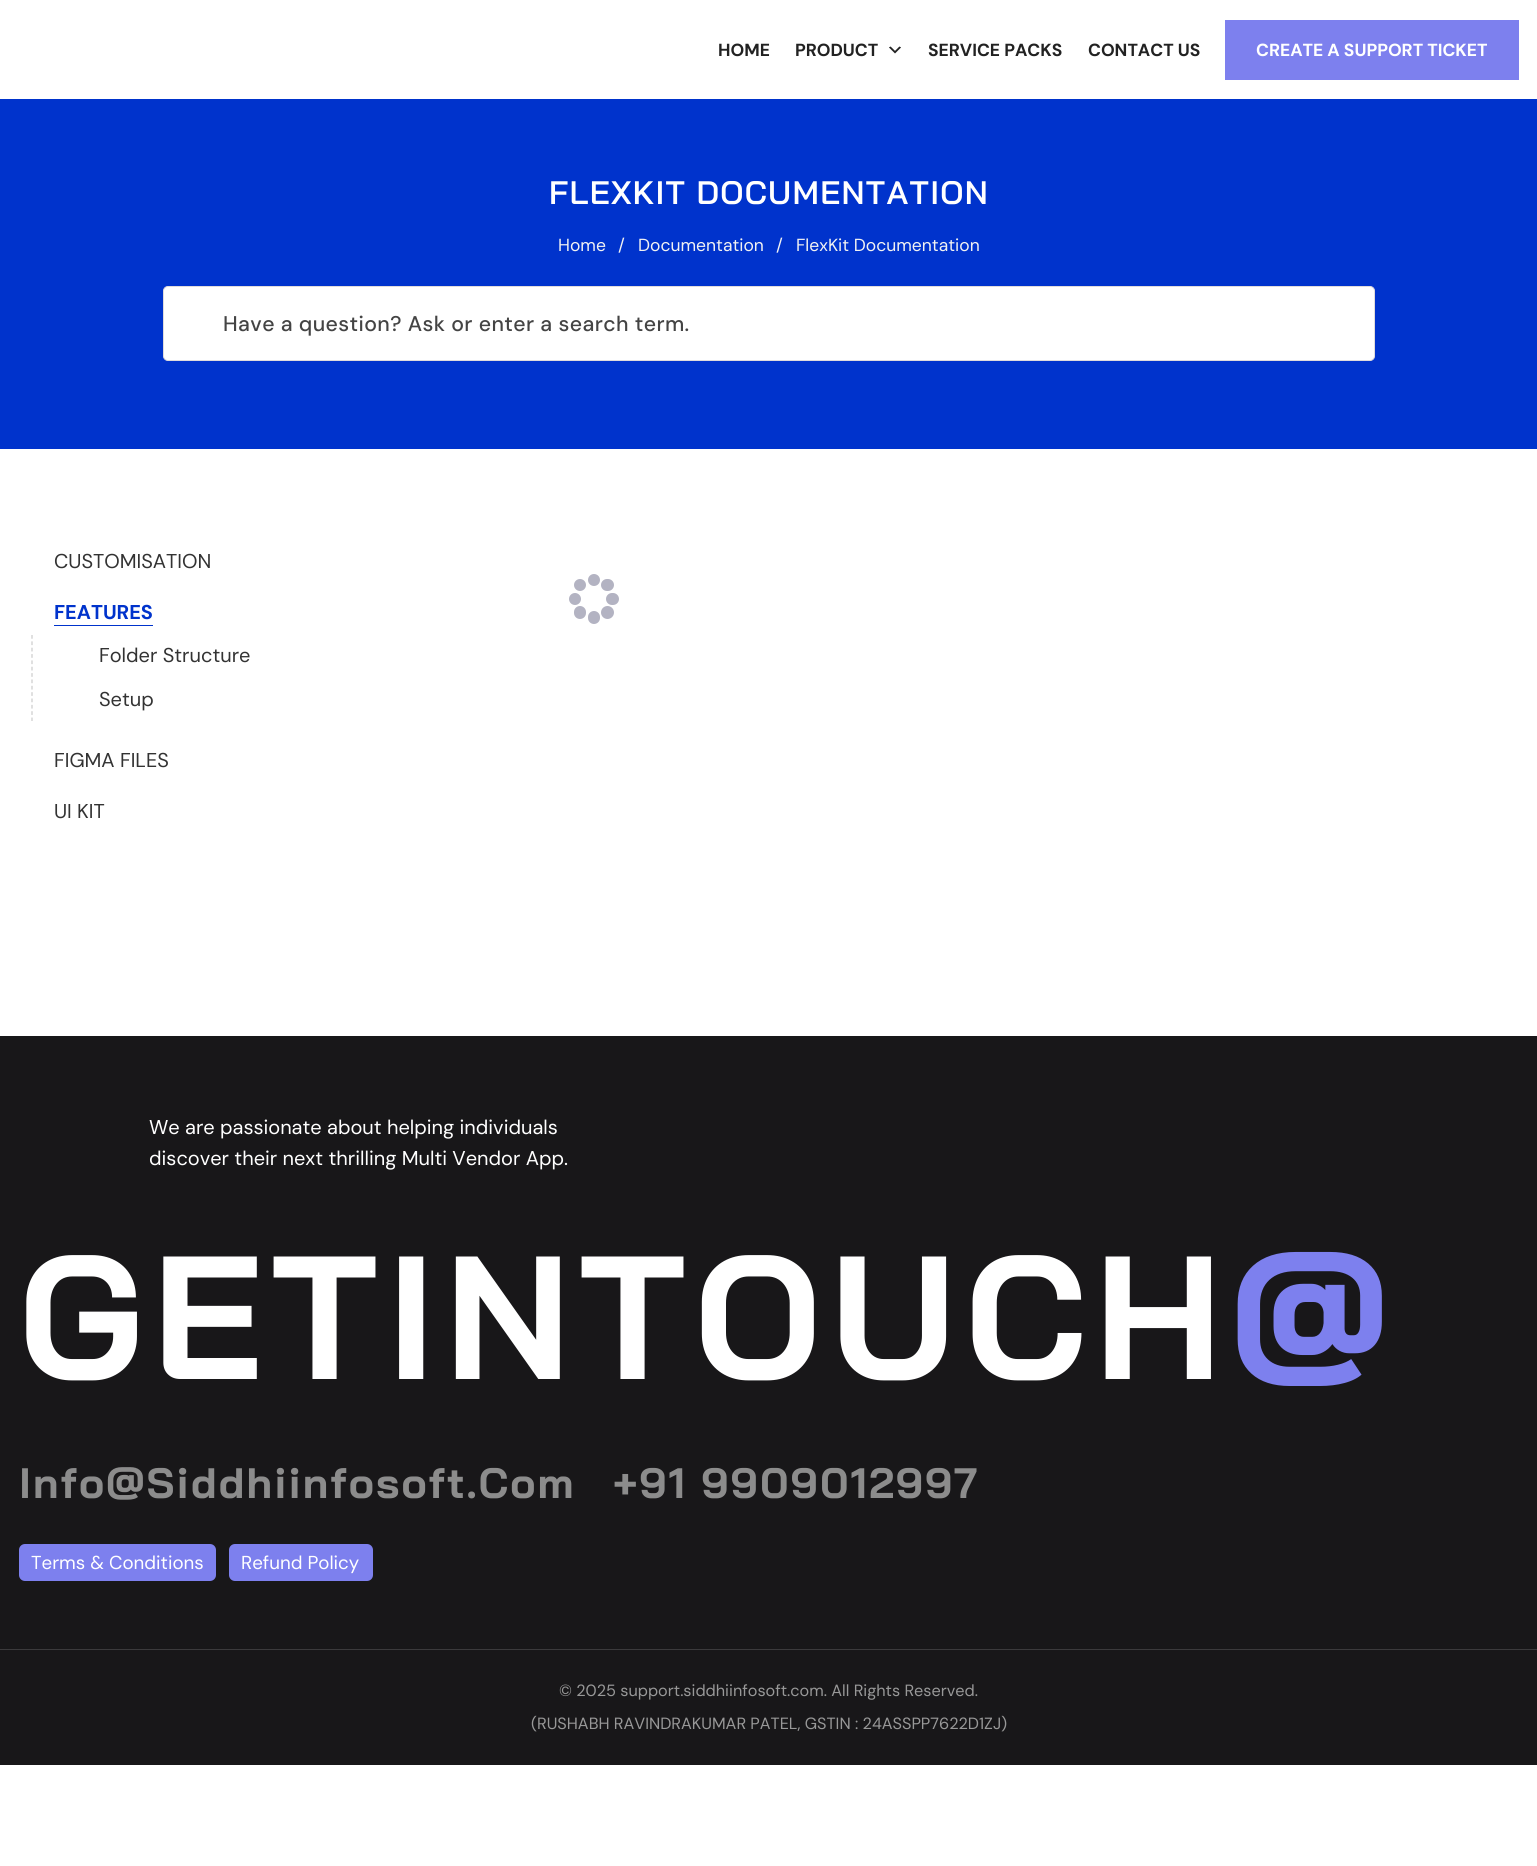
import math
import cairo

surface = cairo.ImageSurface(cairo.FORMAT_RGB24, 1537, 1866)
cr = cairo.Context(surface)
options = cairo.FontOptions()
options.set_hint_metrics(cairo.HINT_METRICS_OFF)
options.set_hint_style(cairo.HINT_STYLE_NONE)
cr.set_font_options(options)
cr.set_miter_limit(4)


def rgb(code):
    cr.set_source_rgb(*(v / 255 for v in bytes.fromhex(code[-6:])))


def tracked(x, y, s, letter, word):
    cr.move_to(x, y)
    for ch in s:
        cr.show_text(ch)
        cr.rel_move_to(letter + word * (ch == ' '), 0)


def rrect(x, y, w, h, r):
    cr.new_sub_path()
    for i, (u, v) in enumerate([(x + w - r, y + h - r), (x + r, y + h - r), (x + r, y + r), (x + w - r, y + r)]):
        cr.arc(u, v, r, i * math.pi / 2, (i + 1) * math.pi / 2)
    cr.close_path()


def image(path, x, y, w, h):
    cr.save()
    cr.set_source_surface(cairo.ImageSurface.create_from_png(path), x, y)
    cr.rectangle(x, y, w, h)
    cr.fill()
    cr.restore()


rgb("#ffffff")
cr.paint()
image("img/1.png", 889, 46, 12, 8)
rgb("#7d80ee")
cr.rectangle(1225, 20, 294, 60)
cr.fill()
rgb("#0033cc")
cr.rectangle(0, 99, 1537, 350)
cr.fill()
rgb("#ffffff")
rrect(163.5, 286.5, 1211, 74, 4.5)
cr.fill_preserve()
rgb("#e0dcdc")
cr.set_line_width(1)
cr.stroke()
rgb("#0033cc")
cr.rectangle(54, 625, 99, 1)
cr.fill()
cr.new_path()
cr.move_to(32, 635)
cr.line_to(32, 721)
rgb("#cccccc")
cr.set_line_width(1.2)
cr.set_dash([3.75, 2.6])
cr.stroke()
rgb("#b3b3c2")
rrect(601, 579, 13, 12, 6)
cr.fill()
cr.arc(594, 580, 6, 0, 2 * math.pi)
cr.fill()
cr.arc(580, 585, 6, 0, 2 * math.pi)
cr.fill()
cr.arc(575, 599, 6, 0, 2 * math.pi)
cr.fill()
rrect(574, 606, 12, 13, 6)
cr.fill()
rrect(588, 611, 12, 13, 6)
cr.fill()
cr.arc(607.5, 612.5, 6.5, 0, 2 * math.pi)
cr.fill()
rrect(606, 593, 13, 12, 6)
cr.fill()
rgb("#181719")
cr.rectangle(0, 1036, 1537, 729)
cr.fill()
rgb("#7d80ee")
rrect(19, 1544, 197, 37, 6)
cr.fill()
rrect(229, 1544, 144, 37, 6)
cr.fill()
rgb("#3b3a3c")
cr.rectangle(0, 1649, 1537, 1)
cr.fill()
cr.select_font_face("DM Sans", cairo.FONT_SLANT_NORMAL, cairo.FONT_WEIGHT_BOLD)
cr.set_font_size(17.5)
rgb("#222222")
for x, y, s in [
    (718, 56, "HOME"),
    (795, 56, "PRODUCT"),
    (928, 56, "SERVICE PACKS"),
    (1088, 56, "CONTACT US"),
]:
    cr.move_to(x, y)
    cr.show_text(s)
rgb("#ffffff")
cr.move_to(1256, 56)
cr.show_text("CREATE A SUPPORT TICKET")
cr.select_font_face("Bai Jamjuree SemiBold")
cr.set_font_size(32.5)
tracked(549, 204, "FLEXKIT DOCUMENTATION", 1.25, 0)
cr.select_font_face("DM Sans")
cr.set_font_size(17.5)
rgb("#f2f2f2")
for x, y, s in [
    (558, 251, "Home"),
    (618, 251, "/"),
    (638, 251, "Documentation"),
    (776, 251, "/"),
    (796, 251, "FlexKit Documentation"),
]:
    cr.move_to(x, y)
    cr.show_text(s)
cr.select_font_face("DM Sans Medium")
cr.set_font_size(21.25)
rgb("#444444")
tracked(223, 331, "Have a question? Ask or enter a search term.", 0.4, 0)
cr.select_font_face("DM Sans")
cr.set_font_size(20)
rgb("#333333")
cr.move_to(54, 568)
cr.show_text("CUSTOMISATION")
cr.select_font_face("DM Sans", cairo.FONT_SLANT_NORMAL, cairo.FONT_WEIGHT_BOLD)
rgb("#0033cc")
cr.move_to(54, 619)
cr.show_text("FEATURES")
cr.select_font_face("DM Sans")
rgb("#333333")
for x, y, s in [
    (99, 662, "Folder Structure"),
    (99, 706, "Setup"),
    (54, 767, "FIGMA FILES"),
    (54, 818, "UI KIT"),
]:
    cr.move_to(x, y)
    cr.show_text(s)
rgb("#ffffff")
cr.move_to(149, 1134)
cr.show_text("We are passionate about helping individuals")
cr.move_to(149, 1165)
cr.show_text("discover their next thrilling Multi Vendor App.")
cr.select_font_face("Bai Jamjuree", cairo.FONT_SLANT_NORMAL, cairo.FONT_WEIGHT_BOLD)
cr.set_font_size(175)
tracked(19, 1379, "GETINTOUCH", 9, 0)
rgb("#7d80ee")
tracked(1231, 1379, "@", 9, 0)
cr.set_font_size(42.5)
rgb("#8c8c8c")
tracked(19, 1498, "Info@Siddhiinfosoft.Com", 2.1, 0)
tracked(613, 1498, "+91 9909012997", 2.1, 0)
cr.select_font_face("DM Sans")
cr.set_font_size(18.75)
rgb("#ffffff")
cr.move_to(31, 1569)
cr.show_text("Terms & Conditions")
cr.move_to(241, 1569)
cr.show_text("Refund Policy")
cr.set_font_size(16.25)
rgb("#989898")
cr.move_to(559, 1696)
cr.show_text("© 2025 support.siddhiinfosoft.com. All Rights Reserved.")
cr.move_to(531, 1729)
cr.show_text("(RUSHABH RAVINDRAKUMAR PATEL, GSTIN : 24ASSPP7622D1ZJ)")
surface.write_to_png("page.png")
